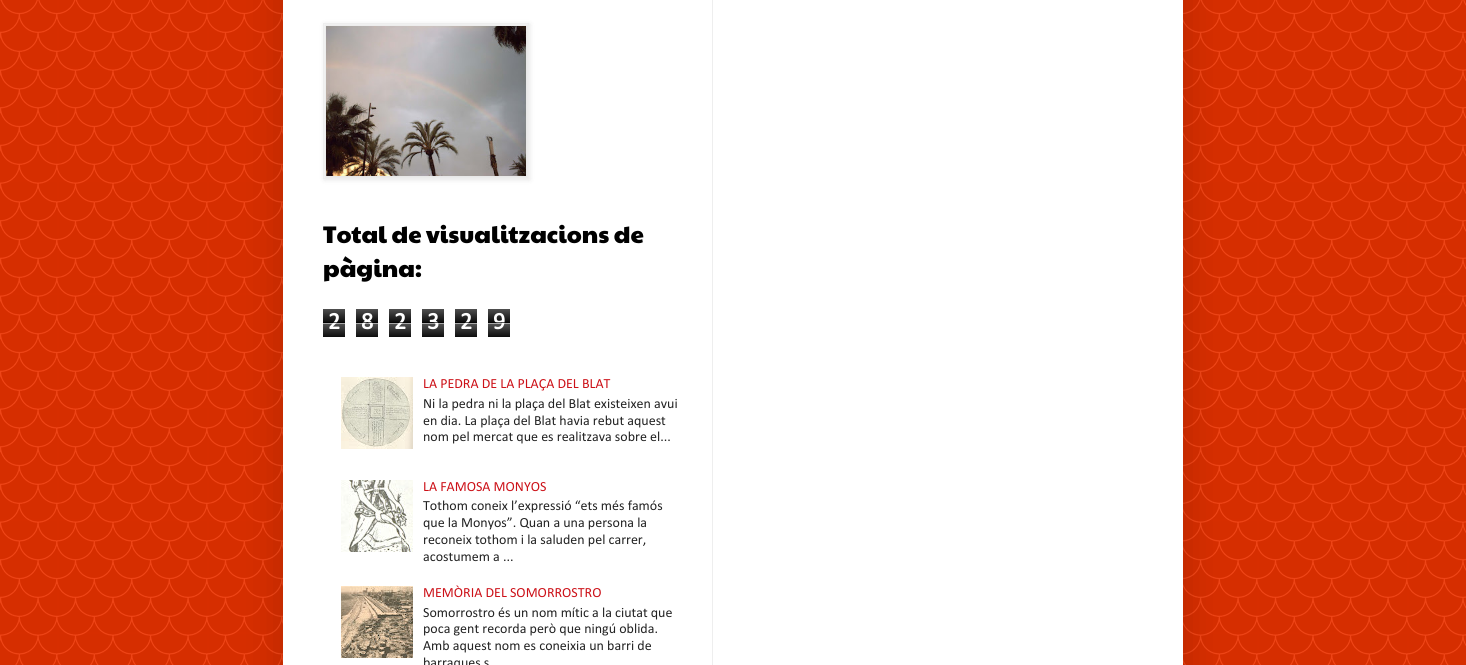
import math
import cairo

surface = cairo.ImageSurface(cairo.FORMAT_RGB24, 1466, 665)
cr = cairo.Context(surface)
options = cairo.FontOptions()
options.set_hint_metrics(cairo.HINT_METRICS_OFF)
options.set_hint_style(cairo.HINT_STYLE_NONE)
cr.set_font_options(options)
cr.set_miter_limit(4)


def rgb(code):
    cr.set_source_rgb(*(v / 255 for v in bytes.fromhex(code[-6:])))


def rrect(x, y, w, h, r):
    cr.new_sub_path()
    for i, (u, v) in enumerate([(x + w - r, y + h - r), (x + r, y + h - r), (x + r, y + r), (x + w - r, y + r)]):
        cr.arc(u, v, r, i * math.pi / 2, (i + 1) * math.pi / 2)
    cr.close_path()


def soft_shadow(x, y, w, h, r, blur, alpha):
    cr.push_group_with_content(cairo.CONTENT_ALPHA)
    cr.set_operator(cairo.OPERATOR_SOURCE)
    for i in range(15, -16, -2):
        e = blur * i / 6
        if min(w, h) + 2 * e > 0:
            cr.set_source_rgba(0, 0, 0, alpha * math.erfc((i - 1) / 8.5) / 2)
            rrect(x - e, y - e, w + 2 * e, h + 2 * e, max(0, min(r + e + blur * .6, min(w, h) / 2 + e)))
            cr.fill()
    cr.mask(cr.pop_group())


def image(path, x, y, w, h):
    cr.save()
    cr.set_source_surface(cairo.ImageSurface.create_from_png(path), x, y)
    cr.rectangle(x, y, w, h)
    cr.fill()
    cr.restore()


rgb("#ee3300")
cr.paint()
image("img/1.png", 0, 0, 1466, 665)
rgb("#000000")
soft_shadow(283, -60, 900, 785, 0, 20, 0.15)
rgb("#ffffff")
cr.rectangle(283, 0, 900, 665)
cr.fill()
rgb("#000000")
soft_shadow(324, 24, 206, 156, 0, 2.5, 0.1)
cr.rectangle(323.5, 23.5, 205, 155)
rgb("#eeeeee")
cr.set_line_width(1)
cr.stroke()
image("img/2.png", 326, 26, 200, 150)
image("img/3.png", 323, 309, 22, 28)
image("img/3.png", 356, 309, 22, 28)
image("img/3.png", 389, 309, 22, 28)
image("img/3.png", 422, 309, 22, 28)
image("img/3.png", 455, 309, 22, 28)
image("img/3.png", 488, 309, 22, 28)
image("img/4.png", 341, 377, 72, 72)
image("img/5.png", 341, 480, 72, 72)
image("img/6.png", 341, 586, 72, 72)
cr.rectangle(712, 0, 1, 665)
cr.fill()
cr.select_font_face("Paytone One")
cr.set_font_size(24)
rgb("#000000")
cr.move_to(323, 243)
cr.show_text("Total de visualitzacions de")
cr.move_to(323, 277)
cr.show_text("pàgina:")
cr.select_font_face("Calibri", cairo.FONT_SLANT_NORMAL, cairo.FONT_WEIGHT_BOLD)
rgb("#ffffff")
cr.move_to(328, 329)
cr.show_text("2")
cr.set_source_rgba(0, 0, 0, 0.65)
cr.rectangle(323, 322, 22, 1)
cr.fill()
cr.set_source_rgba(1, 1, 1, 0.65)
cr.rectangle(323, 323, 22, 1)
cr.fill()
rgb("#ffffff")
cr.move_to(361, 329)
cr.show_text("8")
cr.set_source_rgba(0, 0, 0, 0.65)
cr.rectangle(356, 322, 22, 1)
cr.fill()
cr.set_source_rgba(1, 1, 1, 0.65)
cr.rectangle(356, 323, 22, 1)
cr.fill()
rgb("#ffffff")
cr.move_to(394, 329)
cr.show_text("2")
cr.set_source_rgba(0, 0, 0, 0.65)
cr.rectangle(389, 322, 22, 1)
cr.fill()
cr.set_source_rgba(1, 1, 1, 0.65)
cr.rectangle(389, 323, 22, 1)
cr.fill()
rgb("#ffffff")
cr.move_to(427, 329)
cr.show_text("3")
cr.set_source_rgba(0, 0, 0, 0.65)
cr.rectangle(422, 322, 22, 1)
cr.fill()
cr.set_source_rgba(1, 1, 1, 0.65)
cr.rectangle(422, 323, 22, 1)
cr.fill()
rgb("#ffffff")
cr.move_to(460, 329)
cr.show_text("2")
cr.set_source_rgba(0, 0, 0, 0.65)
cr.rectangle(455, 322, 22, 1)
cr.fill()
cr.set_source_rgba(1, 1, 1, 0.65)
cr.rectangle(455, 323, 22, 1)
cr.fill()
rgb("#ffffff")
cr.move_to(493, 329)
cr.show_text("9")
cr.set_source_rgba(0, 0, 0, 0.65)
cr.rectangle(488, 322, 22, 1)
cr.fill()
cr.set_source_rgba(1, 1, 1, 0.65)
cr.rectangle(488, 323, 22, 1)
cr.fill()
cr.select_font_face("Calibri")
cr.set_font_size(14)
rgb("#cc1118")
cr.move_to(423, 388)
cr.show_text("LA PEDRA DE LA PLAÇA DEL BLAT")
rgb("#222222")
for x, y, s in [
    (423, 408, "Ni la pedra ni la plaça del Blat existeixen avui"),
    (423, 425, "en dia. La plaça del Blat havia rebut aquest"),
    (423, 441, "nom pel mercat que es realitzava sobre el..."),
]:
    cr.move_to(x, y)
    cr.show_text(s)
rgb("#cc1118")
cr.move_to(423, 491)
cr.show_text("LA FAMOSA MONYOS")
rgb("#222222")
for x, y, s in [
    (423, 510, "Tothom coneix l’expressió “ets més famós"),
    (423, 527, "que la Monyos”. Quan a una persona la"),
    (423, 544, "reconeix tothom i la saluden pel carrer,"),
    (423, 561, "acostumem a ..."),
]:
    cr.move_to(x, y)
    cr.show_text(s)
rgb("#cc1118")
cr.move_to(423, 597)
cr.show_text("MEMÒRIA DEL SOMORROSTRO")
rgb("#222222")
for x, y, s in [
    (423, 617, "Somorrostro és un nom mític a la ciutat que"),
    (423, 633, "poca gent recorda però que ningú oblida."),
    (423, 650, "Amb aquest nom es coneixia un barri de"),
    (423, 667, "barraques s"),
]:
    cr.move_to(x, y)
    cr.show_text(s)
surface.write_to_png("page.png")
